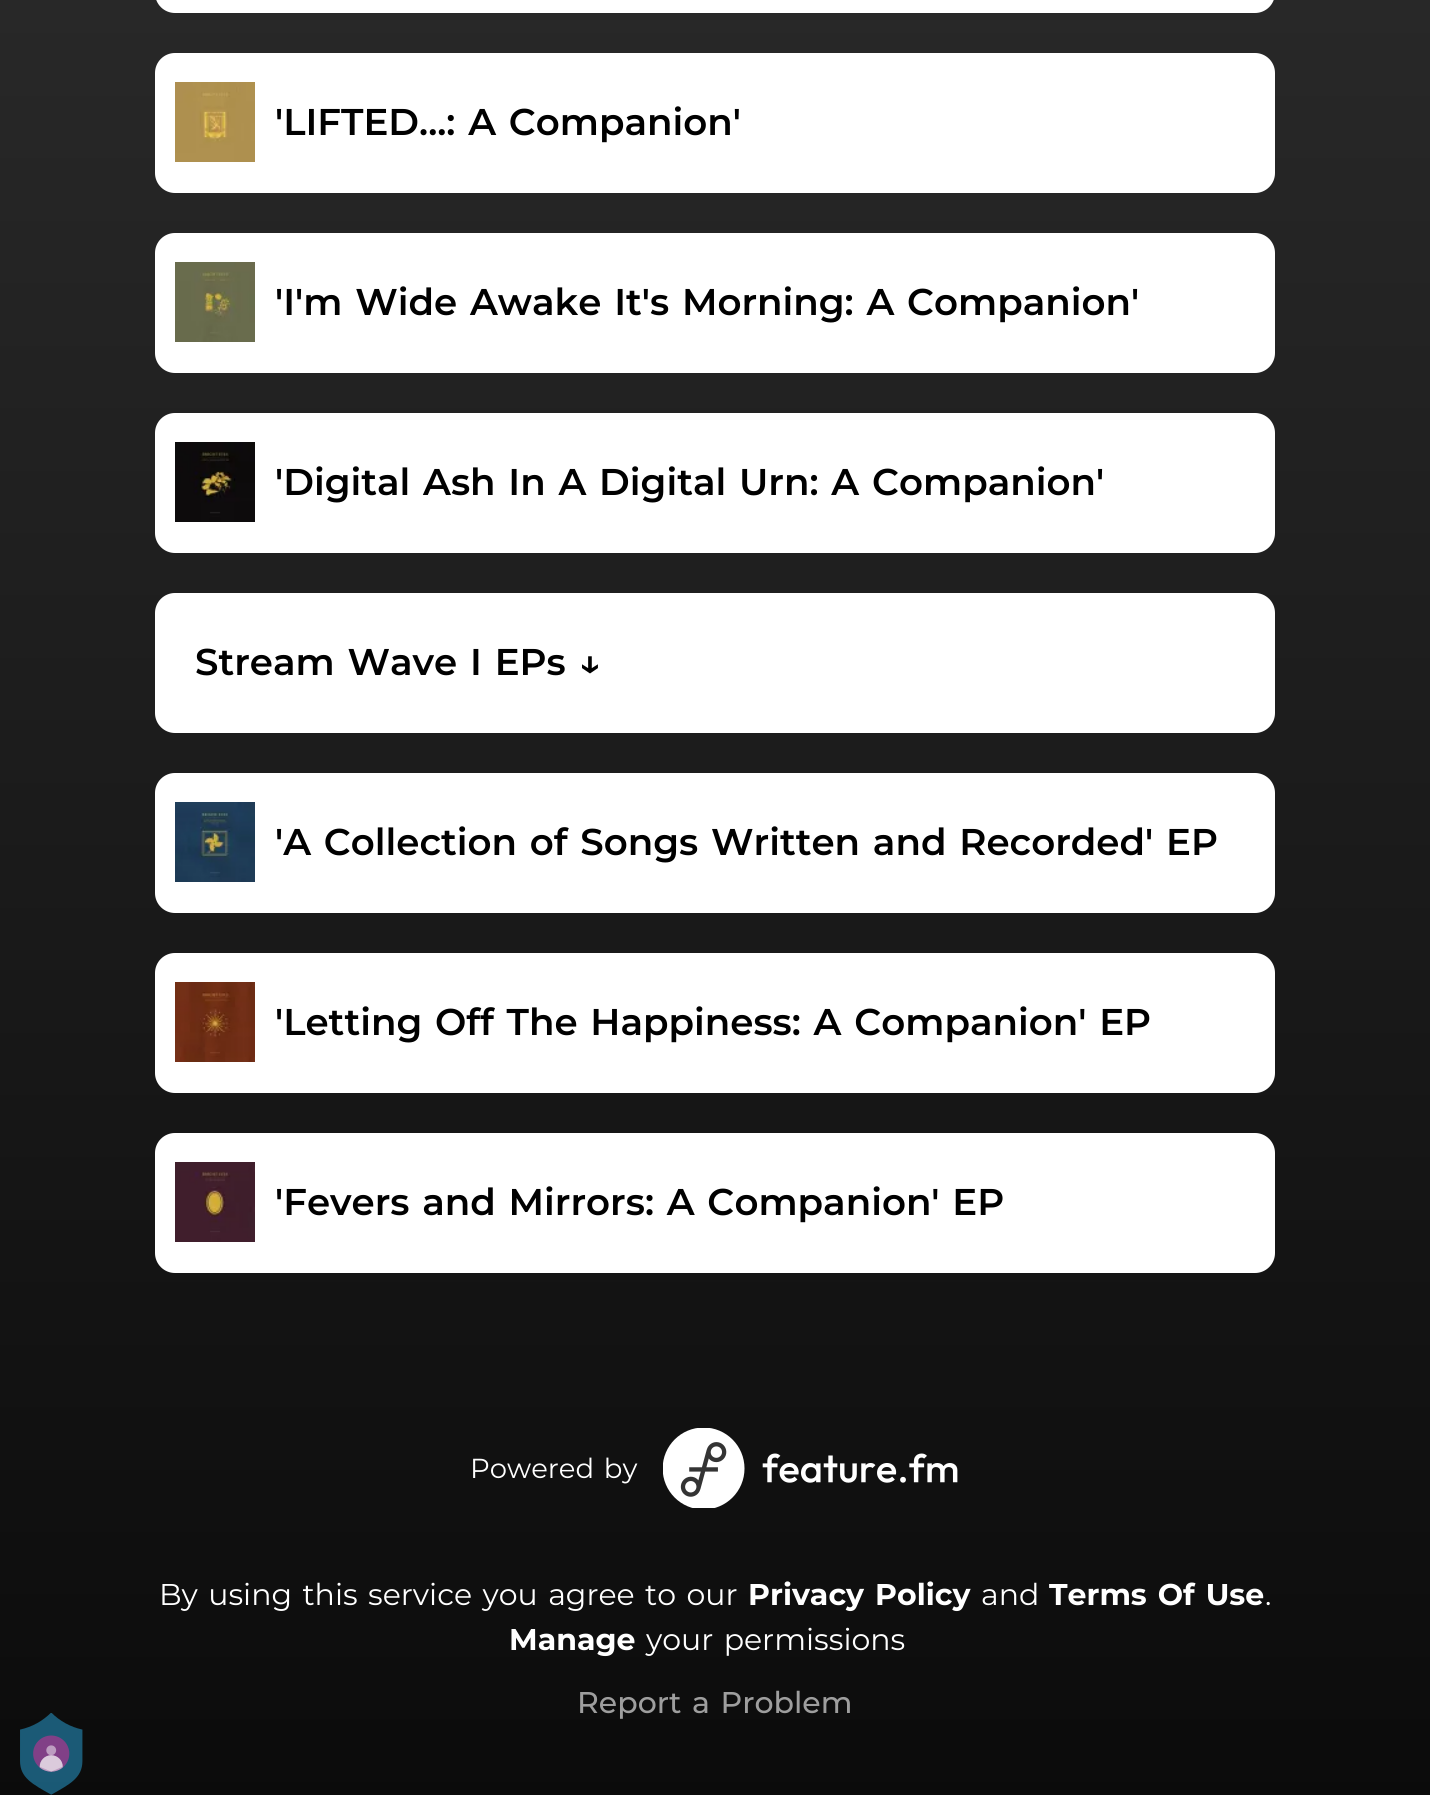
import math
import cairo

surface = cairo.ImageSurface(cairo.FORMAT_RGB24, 1430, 1795)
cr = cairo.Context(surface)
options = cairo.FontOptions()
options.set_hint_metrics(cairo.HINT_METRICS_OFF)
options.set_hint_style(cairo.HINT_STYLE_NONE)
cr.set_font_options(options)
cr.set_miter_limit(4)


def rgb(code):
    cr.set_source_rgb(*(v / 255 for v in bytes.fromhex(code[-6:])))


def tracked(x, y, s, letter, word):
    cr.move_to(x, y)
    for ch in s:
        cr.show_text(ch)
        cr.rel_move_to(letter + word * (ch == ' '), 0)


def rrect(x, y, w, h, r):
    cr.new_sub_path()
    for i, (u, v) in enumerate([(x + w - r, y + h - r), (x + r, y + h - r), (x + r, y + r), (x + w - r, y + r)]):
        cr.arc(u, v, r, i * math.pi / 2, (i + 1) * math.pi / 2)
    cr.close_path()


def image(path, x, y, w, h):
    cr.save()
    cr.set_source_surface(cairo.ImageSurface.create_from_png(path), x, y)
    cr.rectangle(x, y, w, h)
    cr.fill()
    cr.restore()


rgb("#ffffff")
cr.paint()
gradient = cairo.LinearGradient(715, 0, 715, 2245)
gradient.add_color_stop_rgba(0, 0.157, 0.157, 0.157, 1)
gradient.add_color_stop_rgba(1, 0.016, 0.016, 0.016, 1)
cr.set_source(gradient)
cr.rectangle(0, 0, 1430, 1795)
cr.fill()
rgb("#ffffff")
rrect(155, -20, 1120, 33, 20)
cr.fill()
rrect(155, 53, 1120, 140, 20)
cr.fill()
image("img/1.png", 175, 82, 80, 80)
rrect(155, 233, 1120, 140, 20)
cr.fill()
image("img/2.png", 175, 262, 80, 80)
rrect(155, 413, 1120, 140, 20)
cr.fill()
image("img/3.png", 175, 442, 80, 80)
rrect(155, 593, 1120, 140, 20)
cr.fill()
rrect(155, 773, 1120, 140, 20)
cr.fill()
image("img/4.png", 175, 802, 80, 80)
rrect(155, 953, 1120, 140, 20)
cr.fill()
image("img/5.png", 175, 982, 80, 80)
rrect(155, 1133, 1120, 140, 20)
cr.fill()
image("img/6.png", 175, 1162, 80, 80)
image("img/7.png", 663, 1428, 295, 80)
image("img/8.png", 20, 1713, 63, 82)
cr.select_font_face("Montserrat SemiBold")
cr.set_font_size(37.2)
rgb("#000000")
for x, y, s in [
    (275, 135, "'LIFTED...: A Companion'"),
    (275, 315, "'I'm Wide Awake It's Morning: A Companion'"),
    (275, 495, "'Digital Ash In A Digital Urn: A Companion'"),
    (195, 675, "Stream Wave I EPs ↓"),
    (275, 855, "'A Collection of Songs Written and Recorded' EP"),
    (275, 1035, "'Letting Off The Happiness: A Companion' EP"),
    (275, 1215, "'Fevers and Mirrors: A Companion' EP"),
]:
    tracked(x, y, s, 0, 2.5)
cr.select_font_face("Montserrat")
cr.set_font_size(27.5)
rgb("#ffffff")
tracked(470, 1478, "Powered by", 0, 2.5)
cr.set_font_size(30)
tracked(159, 1605, "By using this service you agree to our", 0, 2.5)
cr.select_font_face("Montserrat", cairo.FONT_SLANT_NORMAL, cairo.FONT_WEIGHT_BOLD)
tracked(748, 1605, "Privacy Policy", 0, 2.5)
cr.select_font_face("Montserrat")
cr.move_to(981, 1605)
cr.show_text("and")
cr.select_font_face("Montserrat", cairo.FONT_SLANT_NORMAL, cairo.FONT_WEIGHT_BOLD)
tracked(1049, 1605, "Terms Of Use", 0, 2.5)
cr.select_font_face("Montserrat")
cr.move_to(1265, 1605)
cr.show_text(".")
cr.select_font_face("Montserrat", cairo.FONT_SLANT_NORMAL, cairo.FONT_WEIGHT_BOLD)
cr.move_to(509, 1650)
cr.show_text("Manage")
cr.select_font_face("Montserrat")
tracked(646, 1650, "your permissions", 0, 2.5)
cr.select_font_face("Montserrat Medium")
rgb("#9e9e9e")
tracked(577, 1713, "Report a Problem", 0, 2.5)
surface.write_to_png("page.png")
